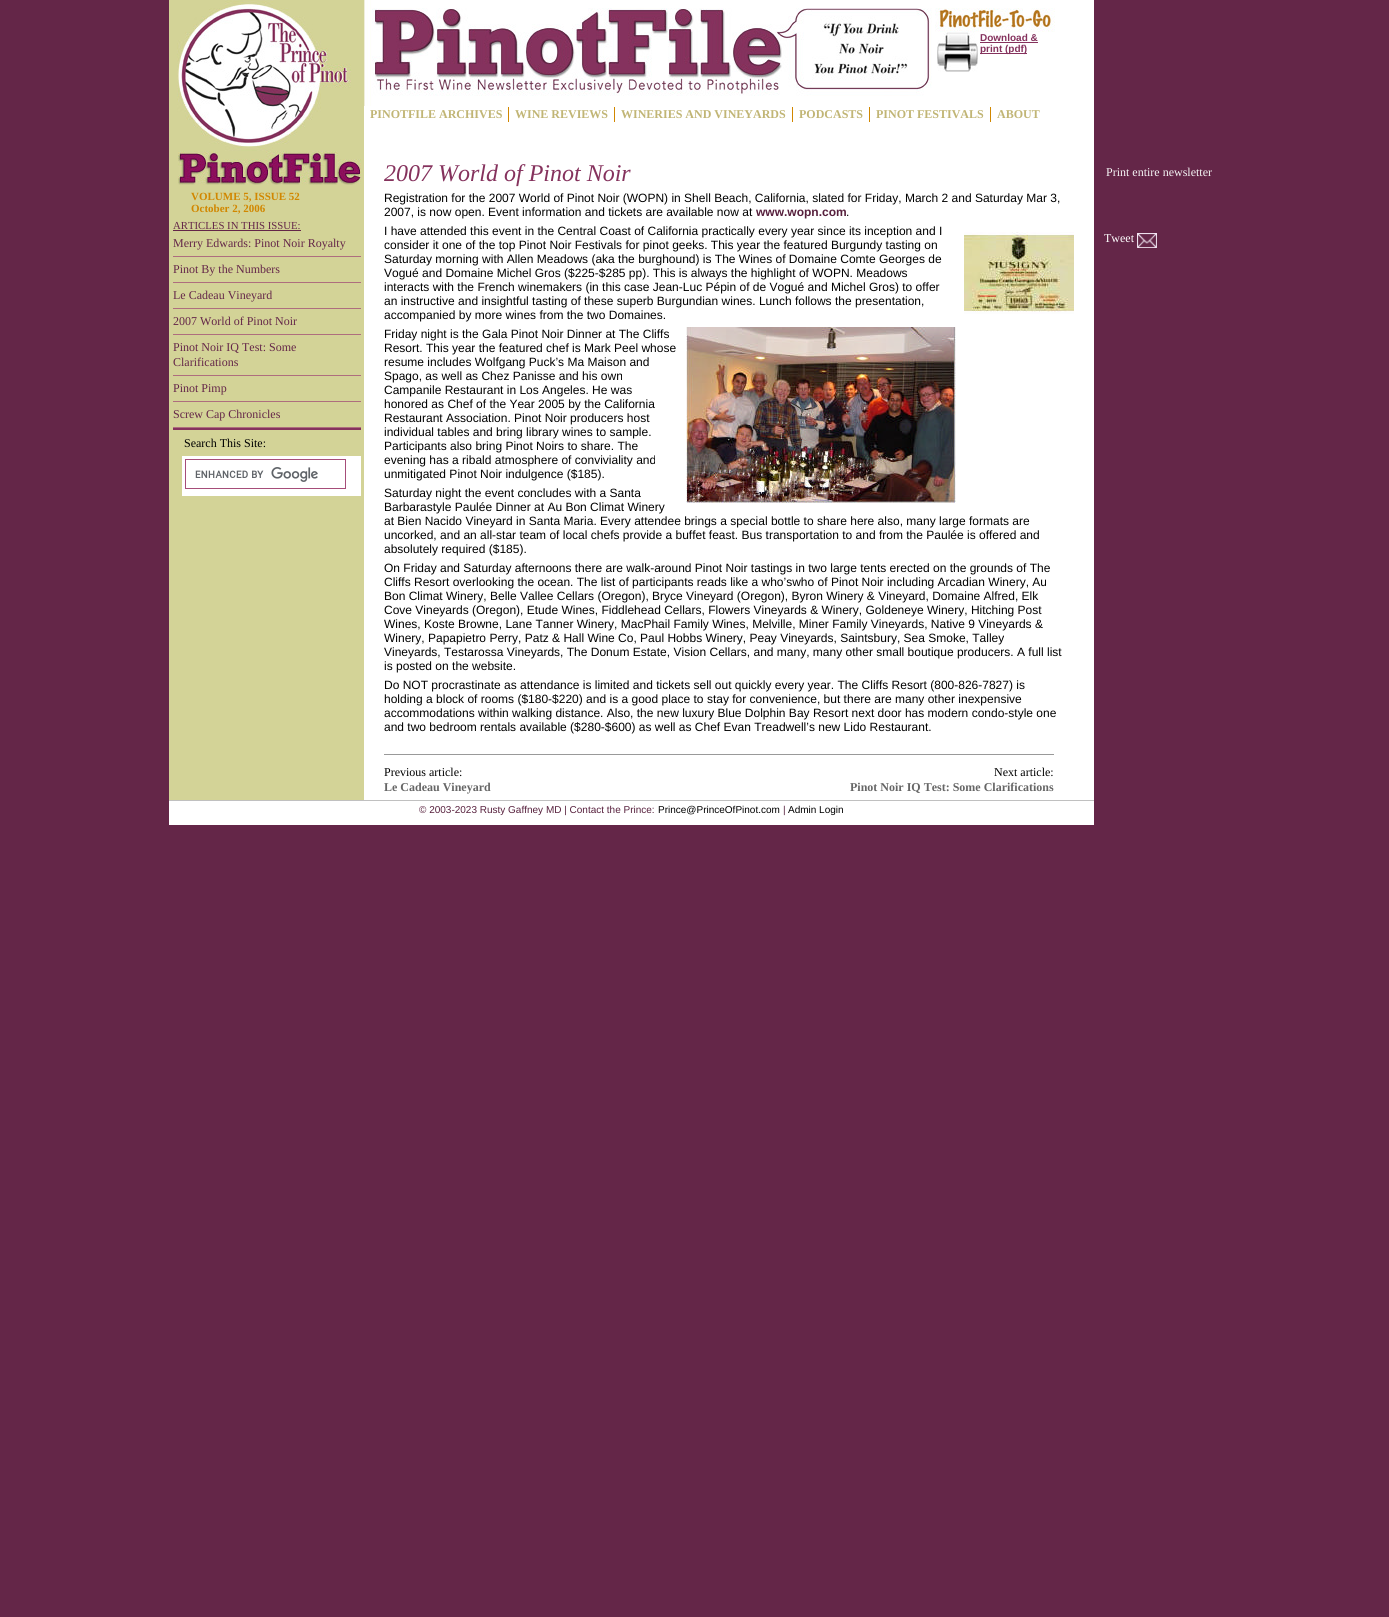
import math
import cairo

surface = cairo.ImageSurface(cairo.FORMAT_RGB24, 1389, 1617)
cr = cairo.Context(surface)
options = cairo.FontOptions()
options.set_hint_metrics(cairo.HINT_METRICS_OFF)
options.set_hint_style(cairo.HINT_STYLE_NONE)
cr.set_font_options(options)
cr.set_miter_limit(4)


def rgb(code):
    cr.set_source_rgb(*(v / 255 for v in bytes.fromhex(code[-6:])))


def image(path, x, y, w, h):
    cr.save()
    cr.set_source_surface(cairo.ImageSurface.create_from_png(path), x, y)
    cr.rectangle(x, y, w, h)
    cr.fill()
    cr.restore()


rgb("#642648")
cr.paint()
rgb("#ffffff")
cr.rectangle(364, 0, 730, 800)
cr.fill()
image("img/1.png", 364, 0, 568, 106)
image("img/2.png", 935, 8, 120, 24)
image("img/3.png", 937, 32, 41, 40)
for x, y, w, h, color in [
    (980, 42, 58, 1, "#85325d"),
    (980, 53, 47, 1, "#85325d"),
    (508, 107, 1, 15, "#d18700"),
    (614, 107, 1, 15, "#d18700"),
    (792, 107, 1, 15, "#d18700"),
    (869, 107, 1, 15, "#d18700"),
    (990, 107, 1, 15, "#d18700"),
    (169, 0, 195, 800, "#d3d397"),
]:
    rgb(color)
    cr.rectangle(x, y, w, h)
    cr.fill()
image("img/4.png", 177, 0, 174, 151)
image("img/5.png", 178, 151, 183, 34)
for x, y, w, h, color in [
    (173, 428, 188, 2, "#85325d"),
    (173, 230, 128, 1, "#642648"),
    (173, 256, 188, 1, "#ae6e7e"),
    (173, 282, 188, 1, "#ae6e7e"),
    (173, 308, 188, 1, "#ae6e7e"),
    (173, 334, 188, 1, "#ae6e7e"),
    (173, 375, 188, 1, "#ae6e7e"),
    (173, 401, 188, 1, "#ae6e7e"),
    (173, 427, 188, 1, "#ae6e7e"),
    (182, 456, 179, 40, "#ffffff"),
]:
    rgb(color)
    cr.rectangle(x, y, w, h)
    cr.fill()
cr.rectangle(185.5, 459.5, 160, 29)
rgb("#a64d79")
cr.set_line_width(1)
cr.stroke()
image("img/6.png", 195, 467, 123, 15)
image("img/7.png", 964, 232, 110, 82)
image("img/8.png", 686, 327, 270, 176)
rgb("#999999")
cr.rectangle(384, 754, 670, 1)
cr.fill()
image("img/9.png", 1137, 233, 20, 15)
rgb("#ffffff")
cr.rectangle(169, 801, 925, 24)
cr.fill()
rgb("#c0c0c0")
cr.rectangle(169, 800, 925, 1)
cr.fill()
cr.select_font_face("Liberation Sans", cairo.FONT_SLANT_NORMAL, cairo.FONT_WEIGHT_BOLD)
cr.set_font_size(10)
rgb("#85325d")
cr.move_to(980, 41)
cr.show_text("Download &")
cr.move_to(980, 52)
cr.show_text("print (pdf)")
cr.select_font_face("Liberation Serif", cairo.FONT_SLANT_NORMAL, cairo.FONT_WEIGHT_BOLD)
cr.set_font_size(12)
rgb("#c1b575")
for x, y, s in [
    (370, 118, "PINOTFILE ARCHIVES"),
    (515, 118, "WINE REVIEWS"),
    (621, 118, "WINERIES AND VINEYARDS"),
    (799, 118, "PODCASTS"),
    (876, 118, "PINOT FESTIVALS"),
    (997, 118, "ABOUT"),
]:
    cr.move_to(x, y)
    cr.show_text(s)
cr.set_font_size(11)
rgb("#d18700")
cr.move_to(191, 200)
cr.show_text("VOLUME 5, ISSUE 52")
cr.move_to(191, 212)
cr.show_text("October 2, 2006")
cr.select_font_face("Liberation Serif")
cr.set_font_size(10.75)
rgb("#642648")
cr.move_to(173, 229)
cr.show_text("ARTICLES IN THIS ISSUE:")
cr.set_font_size(12)
for x, y, s in [
    (173, 247, "Merry Edwards: Pinot Noir Royalty"),
    (173, 273, "Pinot By the Numbers"),
    (173, 299, "Le Cadeau Vineyard"),
    (173, 325, "2007 World of Pinot Noir"),
    (173, 351, "Pinot Noir IQ Test: Some"),
    (173, 366, "Clarifications"),
    (173, 392, "Pinot Pimp"),
    (173, 418, "Screw Cap Chronicles"),
]:
    cr.move_to(x, y)
    cr.show_text(s)
rgb("#000000")
cr.move_to(184, 447)
cr.show_text("Search This Site:")
cr.select_font_face("Liberation Serif", cairo.FONT_SLANT_ITALIC)
cr.set_font_size(24)
rgb("#85325d")
cr.move_to(384, 181)
cr.show_text("2007 World of Pinot Noir")
cr.select_font_face("Liberation Sans")
cr.set_font_size(12)
rgb("#000000")
cr.move_to(384, 202)
cr.show_text("Registration for the 2007 World of Pinot Noir (WOPN) in Shell Beach, California, slated for Friday, March 2 and Saturday Mar 3,")
cr.move_to(384, 216)
cr.show_text("2007, is now open. Event information and tickets are available now at")
cr.select_font_face("Liberation Sans", cairo.FONT_SLANT_NORMAL, cairo.FONT_WEIGHT_BOLD)
rgb("#57203d")
cr.move_to(756, 216)
cr.show_text("www.wopn.com")
cr.select_font_face("Liberation Sans")
rgb("#000000")
for x, y, s in [
    (846, 216, "."),
    (384, 235, "I have attended this event in the Central Coast of California practically every year since its inception and I"),
    (384, 249, "consider it one of the top Pinot Noir Festivals for pinot geeks. This year the featured Burgundy tasting on"),
    (384, 263, "Saturday morning with Allen Meadows (aka the burghound) is The Wines of Domaine Comte Georges de"),
    (384, 277, "Vogué and Domaine Michel Gros ($225-$285 pp). This is always the highlight of WOPN. Meadows"),
    (384, 291, "interacts with the French winemakers (in this case Jean-Luc Pépin of de Vogué and Michel Gros) to offer"),
    (384, 305, "an instructive and insightful tasting of these superb Burgundian wines. Lunch follows the presentation,"),
    (384, 319, "accompanied by more wines from the two Domaines."),
    (384, 338, "Friday night is the Gala Pinot Noir Dinner at The Cliffs"),
    (384, 352, "Resort. This year the featured chef is Mark Peel whose"),
    (384, 366, "resume includes Wolfgang Puck’s Ma Maison and"),
    (384, 380, "Spago, as well as Chez Panisse and his own"),
    (384, 394, "Campanile Restaurant in Los Angeles. He was"),
    (384, 408, "honored as Chef of the Year 2005 by the California"),
    (384, 422, "Restaurant Association. Pinot Noir producers host"),
    (384, 436, "individual tables and bring library wines to sample."),
    (384, 450, "Participants also bring Pinot Noirs to share. The"),
    (384, 464, "evening has a ribald atmosphere of conviviality and"),
    (384, 478, "unmitigated Pinot Noir indulgence ($185)."),
    (384, 497, "Saturday night the event concludes with a Santa"),
    (384, 511, "Barbarastyle Paulée Dinner at Au Bon Climat Winery"),
    (384, 525, "at Bien Nacido Vineyard in Santa Maria. Every attendee brings a special bottle to share here also, many large formats are"),
    (384, 539, "uncorked, and an all-star team of local chefs provide a buffet feast. Bus transportation to and from the Paulée is offered and"),
    (384, 553, "absolutely required ($185)."),
    (384, 572, "On Friday and Saturday afternoons there are walk-around Pinot Noir tastings in two large tents erected on the grounds of The"),
    (384, 586, "Cliffs Resort overlooking the ocean. The list of participants reads like a who’swho of Pinot Noir including Arcadian Winery, Au"),
    (384, 600, "Bon Climat Winery, Belle Vallee Cellars (Oregon), Bryce Vineyard (Oregon), Byron Winery & Vineyard, Domaine Alfred, Elk"),
    (384, 614, "Cove Vineyards (Oregon), Etude Wines, Fiddlehead Cellars, Flowers Vineyards & Winery, Goldeneye Winery, Hitching Post"),
    (384, 628, "Wines, Koste Browne, Lane Tanner Winery, MacPhail Family Wines, Melville, Miner Family Vineyards, Native 9 Vineyards &"),
    (384, 642, "Winery, Papapietro Perry, Patz & Hall Wine Co, Paul Hobbs Winery, Peay Vineyards, Saintsbury, Sea Smoke, Talley"),
    (384, 656, "Vineyards, Testarossa Vineyards, The Donum Estate, Vision Cellars, and many, many other small boutique producers. A full list"),
    (384, 670, "is posted on the website."),
    (384, 689, "Do NOT procrastinate as attendance is limited and tickets sell out quickly every year. The Cliffs Resort (800-826-7827) is"),
    (384, 703, "holding a block of rooms ($180-$220) and is a good place to stay for convenience, but there are many other inexpensive"),
    (384, 717, "accommodations within walking distance. Also, the new luxury Blue Dolphin Bay Resort next door has modern condo-style one"),
    (384, 731, "and two bedroom rentals available ($280-$600) as well as Chef Evan Treadwell’s new Lido Restaurant."),
]:
    cr.move_to(x, y)
    cr.show_text(s)
cr.select_font_face("Liberation Serif")
cr.move_to(384, 776)
cr.show_text("Previous article:")
cr.select_font_face("Liberation Serif", cairo.FONT_SLANT_NORMAL, cairo.FONT_WEIGHT_BOLD)
rgb("#666666")
cr.move_to(384, 791)
cr.show_text("Le Cadeau Vineyard")
cr.select_font_face("Liberation Serif")
rgb("#000000")
cr.move_to(994, 776)
cr.show_text("Next article:")
cr.select_font_face("Liberation Serif", cairo.FONT_SLANT_NORMAL, cairo.FONT_WEIGHT_BOLD)
rgb("#666666")
cr.move_to(850, 791)
cr.show_text("Pinot Noir IQ Test: Some Clarifications")
cr.select_font_face("Liberation Serif")
rgb("#f5f5f5")
cr.move_to(1106, 176)
cr.show_text("Print entire newsletter")
rgb("#ffffff")
cr.move_to(1104, 242)
cr.show_text("Tweet")
cr.select_font_face("Liberation Sans")
cr.set_font_size(10)
rgb("#57203d")
cr.move_to(419, 813)
cr.show_text("© 2003-2023 Rusty Gaffney MD | Contact the Prince:")
rgb("#000000")
cr.move_to(658, 813)
cr.show_text("Prince@PrinceOfPinot.com")
rgb("#57203d")
cr.move_to(783, 813)
cr.show_text("|")
rgb("#000000")
cr.move_to(788, 813)
cr.show_text("Admin Login")
surface.write_to_png("page.png")
